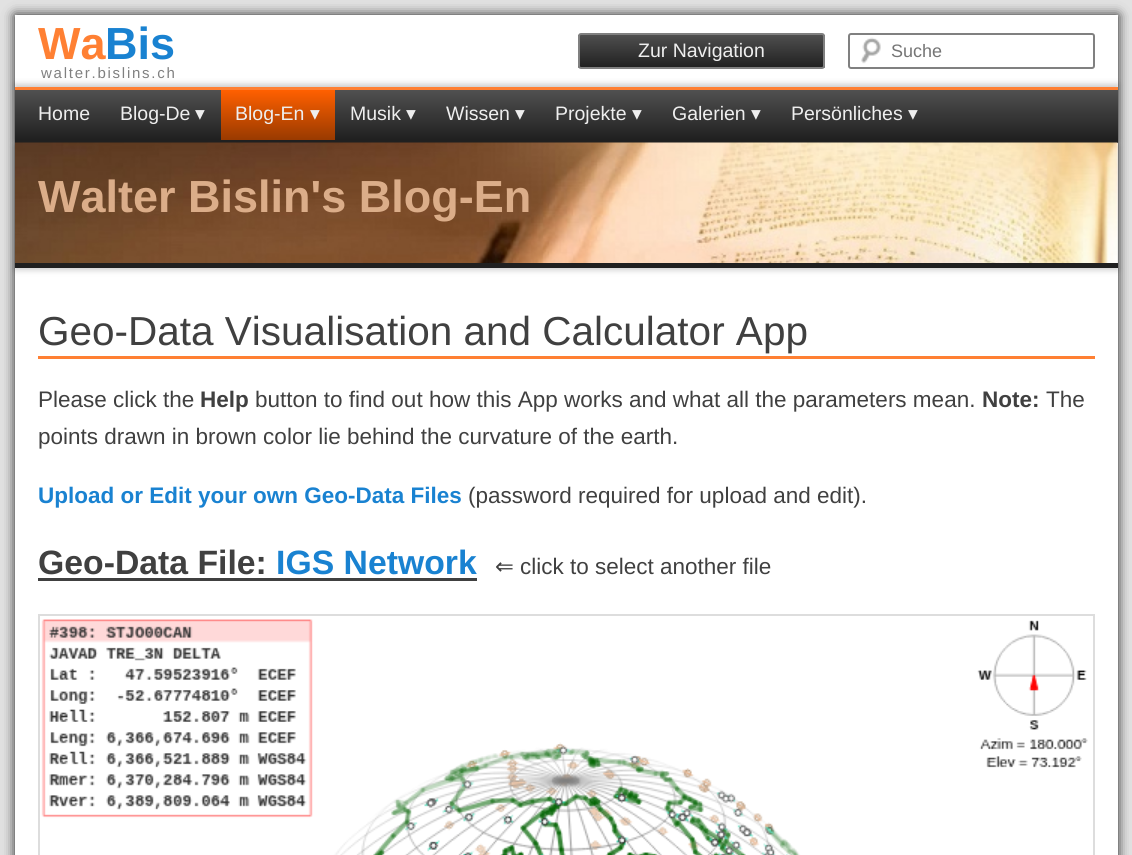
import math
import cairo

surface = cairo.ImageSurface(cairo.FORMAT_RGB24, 1132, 855)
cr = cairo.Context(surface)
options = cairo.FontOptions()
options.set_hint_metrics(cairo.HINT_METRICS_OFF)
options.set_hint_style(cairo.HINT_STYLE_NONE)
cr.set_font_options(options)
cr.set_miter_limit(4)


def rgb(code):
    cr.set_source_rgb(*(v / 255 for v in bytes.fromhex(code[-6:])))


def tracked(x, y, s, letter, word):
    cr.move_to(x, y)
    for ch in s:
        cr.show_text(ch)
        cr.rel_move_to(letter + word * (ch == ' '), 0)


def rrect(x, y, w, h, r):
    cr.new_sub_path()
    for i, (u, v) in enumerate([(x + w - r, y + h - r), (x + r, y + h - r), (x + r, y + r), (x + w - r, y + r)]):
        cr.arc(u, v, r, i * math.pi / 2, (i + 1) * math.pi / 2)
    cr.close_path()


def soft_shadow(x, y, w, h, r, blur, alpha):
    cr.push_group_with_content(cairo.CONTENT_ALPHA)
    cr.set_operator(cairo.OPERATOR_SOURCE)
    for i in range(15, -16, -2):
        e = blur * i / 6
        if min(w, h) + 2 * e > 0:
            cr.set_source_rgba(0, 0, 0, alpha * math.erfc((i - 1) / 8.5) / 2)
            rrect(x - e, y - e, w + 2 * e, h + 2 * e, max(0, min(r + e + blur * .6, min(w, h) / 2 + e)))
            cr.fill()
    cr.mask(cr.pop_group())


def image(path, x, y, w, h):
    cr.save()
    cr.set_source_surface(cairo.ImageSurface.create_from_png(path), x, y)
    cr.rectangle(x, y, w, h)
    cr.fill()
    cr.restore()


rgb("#e2e2e2")
cr.paint()
rgb("#202020")
soft_shadow(15, 15, 1103, 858, 0, 6, 1)
rgb("#ffffff")
cr.rectangle(15, 15, 1103, 840)
cr.fill()
cr.save()
rrect(578, 33, 247, 36, 3)
cr.clip()
gradient = cairo.LinearGradient(701, 34, 701, 68)
gradient.add_color_stop_rgba(0, 0.314, 0.314, 0.314, 1)
gradient.add_color_stop_rgba(1, 0.125, 0.125, 0.125, 1)
cr.set_source(gradient)
cr.rectangle(578, 35, 247, 33)
cr.fill()
cr.restore()
rrect(579, 34, 245, 34, 2)
rgb("#808080")
cr.stroke()
image("img/1.png", 861, 37, 20, 27)
rrect(849, 34, 245, 34, 2)
cr.stroke()
rgb("#000000")
soft_shadow(15, 84, 1103, 56, 0, 3, 0.2)
gradient = cairo.LinearGradient(566, 90, 566, 140)
gradient.add_color_stop_rgba(0, 0.314, 0.314, 0.314, 1)
gradient.add_color_stop_rgba(1, 0.125, 0.125, 0.125, 1)
cr.set_source(gradient)
cr.rectangle(15, 90, 1103, 50)
cr.fill()
rgb("#ff8033")
cr.rectangle(15, 87, 1103, 3)
cr.fill()
rgb("#202020")
cr.rectangle(15, 140, 1103, 3)
cr.fill()
rgb("#000000")
soft_shadow(15, 146, 1103, 124, 0, 3, 0.2)
gradient = cairo.LinearGradient(278, 90, 278, 140)
gradient.add_color_stop_rgba(0, 1, 0.376, 0, 1)
gradient.add_color_stop_rgba(1, 0.6, 0.227, 0, 1)
cr.set_source(gradient)
cr.rectangle(221, 90, 114, 50)
cr.fill()
image("img/2.png", 15, 142, 1103, 121)
for x, y, w, h, color in [
    (15, 263, 1103, 5, "#202020"),
    (38, 356, 1057, 3, "#ff8033"),
    (38, 578, 439, 3, "#404040"),
]:
    rgb(color)
    cr.rectangle(x, y, w, h)
    cr.fill()
cr.rectangle(39, 615, 1055, 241)
rgb("#dddddd")
cr.stroke()
image("img/3.png", 41, 619, 1047, 236)
cr.select_font_face("Liberation Sans", cairo.FONT_SLANT_NORMAL, cairo.FONT_WEIGHT_BOLD)
cr.set_font_size(45)
rgb("#ff8033")
cr.move_to(38, 59)
cr.show_text("Wa")
rgb("#1982d1")
cr.move_to(105, 59)
cr.show_text("Bis")
cr.select_font_face("Liberation Sans")
cr.set_font_size(15)
rgb("#808080")
tracked(41, 78, "walter.bislins.ch", 1.75, 0)
cr.set_font_size(19.5)
rgb("#eeeeee")
cr.move_to(638, 57)
cr.show_text("Zur Navigation")
cr.set_font_size(18)
rgb("#757575")
cr.move_to(891, 57)
cr.show_text("Suche")
cr.set_font_size(19.5)
rgb("#eeeeee")
cr.move_to(38, 120)
cr.show_text("Home")
cr.move_to(120, 120)
cr.show_text("Blog-De")
cr.select_font_face("DejaVu Sans")
cr.move_to(195, 120)
cr.show_text("▾")
cr.select_font_face("Liberation Sans")
cr.move_to(235, 120)
cr.show_text("Blog-En")
cr.select_font_face("DejaVu Sans")
cr.move_to(310, 120)
cr.show_text("▾")
cr.select_font_face("Liberation Sans")
cr.move_to(350, 120)
cr.show_text("Musik")
cr.select_font_face("DejaVu Sans")
cr.move_to(406, 120)
cr.show_text("▾")
cr.select_font_face("Liberation Sans")
cr.move_to(446, 120)
cr.show_text("Wissen")
cr.select_font_face("DejaVu Sans")
cr.move_to(515, 120)
cr.show_text("▾")
cr.select_font_face("Liberation Sans")
cr.move_to(555, 120)
cr.show_text("Projekte")
cr.select_font_face("DejaVu Sans")
cr.move_to(632, 120)
cr.show_text("▾")
cr.select_font_face("Liberation Sans")
cr.move_to(672, 120)
cr.show_text("Galerien")
cr.select_font_face("DejaVu Sans")
cr.move_to(751, 120)
cr.show_text("▾")
cr.select_font_face("Liberation Sans")
cr.move_to(791, 120)
cr.show_text("Persönliches")
cr.select_font_face("DejaVu Sans")
cr.move_to(908, 120)
cr.show_text("▾")
cr.select_font_face("Liberation Sans", cairo.FONT_SLANT_NORMAL, cairo.FONT_WEIGHT_BOLD)
cr.set_font_size(45)
rgb("#dbad89")
cr.move_to(38, 212)
cr.show_text("Walter Bislin's Blog-En")
cr.select_font_face("Liberation Sans")
cr.set_font_size(40.5)
rgb("#404040")
cr.move_to(38, 345)
cr.show_text("Geo-Data Visualisation and Calculator App")
cr.set_font_size(22.5)
cr.move_to(38, 407)
cr.show_text("Please click the")
cr.select_font_face("Liberation Sans", cairo.FONT_SLANT_NORMAL, cairo.FONT_WEIGHT_BOLD)
cr.move_to(200, 407)
cr.show_text("Help")
cr.select_font_face("Liberation Sans")
cr.move_to(255, 407)
cr.show_text("button to find out how this App works and what all the parameters mean.")
cr.select_font_face("Liberation Sans", cairo.FONT_SLANT_NORMAL, cairo.FONT_WEIGHT_BOLD)
cr.move_to(982, 407)
cr.show_text("Note:")
cr.select_font_face("Liberation Sans")
cr.move_to(1046, 407)
cr.show_text("The")
cr.move_to(38, 444)
cr.show_text("points drawn in brown color lie behind the curvature of the earth.")
cr.select_font_face("Liberation Sans", cairo.FONT_SLANT_NORMAL, cairo.FONT_WEIGHT_BOLD)
rgb("#1982d1")
cr.move_to(38, 503)
cr.show_text("Upload or Edit your own Geo-Data Files")
cr.select_font_face("Liberation Sans")
rgb("#404040")
cr.move_to(468, 503)
cr.show_text("(password required for upload and edit).")
cr.select_font_face("Liberation Sans", cairo.FONT_SLANT_NORMAL, cairo.FONT_WEIGHT_BOLD)
cr.set_font_size(33.75)
cr.move_to(38, 574)
cr.show_text("Geo-Data File:")
rgb("#1982d1")
cr.move_to(276, 574)
cr.show_text("IGS Network")
cr.select_font_face("DejaVu Sans")
cr.set_font_size(22.5)
rgb("#404040")
cr.move_to(495, 574)
cr.show_text("⇐")
cr.select_font_face("Liberation Sans")
cr.move_to(520, 574)
cr.show_text("click to select another file")
surface.write_to_png("page.png")
